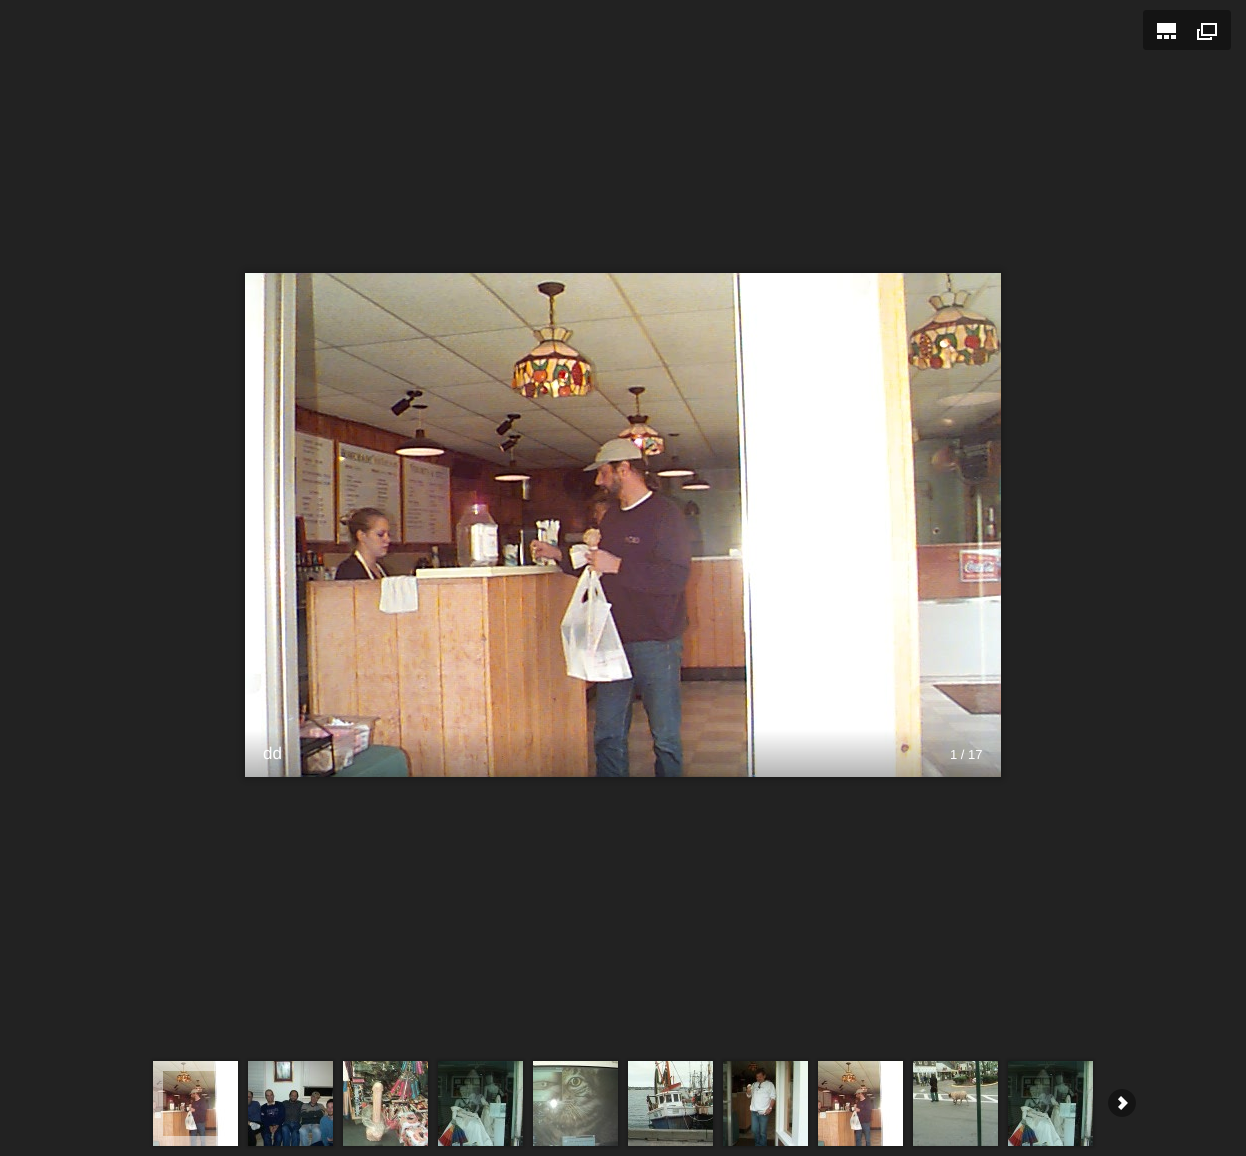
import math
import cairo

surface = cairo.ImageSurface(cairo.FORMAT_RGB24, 1246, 1156)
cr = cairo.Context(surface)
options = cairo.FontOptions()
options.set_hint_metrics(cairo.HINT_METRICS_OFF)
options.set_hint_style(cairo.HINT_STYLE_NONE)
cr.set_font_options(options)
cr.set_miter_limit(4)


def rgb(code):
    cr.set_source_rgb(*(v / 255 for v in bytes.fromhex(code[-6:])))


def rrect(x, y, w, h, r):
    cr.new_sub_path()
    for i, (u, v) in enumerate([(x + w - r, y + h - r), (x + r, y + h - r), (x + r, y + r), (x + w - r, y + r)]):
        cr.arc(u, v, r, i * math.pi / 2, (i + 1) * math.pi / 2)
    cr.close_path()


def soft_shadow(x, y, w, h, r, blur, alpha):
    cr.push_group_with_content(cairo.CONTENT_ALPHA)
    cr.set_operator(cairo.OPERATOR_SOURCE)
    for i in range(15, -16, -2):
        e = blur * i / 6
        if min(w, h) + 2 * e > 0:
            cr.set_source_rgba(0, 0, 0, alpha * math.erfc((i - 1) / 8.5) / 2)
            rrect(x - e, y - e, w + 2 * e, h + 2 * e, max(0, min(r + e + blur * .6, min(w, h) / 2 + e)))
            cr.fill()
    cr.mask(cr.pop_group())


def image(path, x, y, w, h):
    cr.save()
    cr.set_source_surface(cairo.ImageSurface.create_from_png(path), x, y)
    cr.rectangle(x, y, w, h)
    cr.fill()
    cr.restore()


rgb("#222222")
cr.paint()
rgb("#141414")
rrect(1143, 10, 88, 40, 3)
cr.fill()
image("img/1.png", 1157, 23, 19, 16)
image("img/2.png", 1197, 23, 20, 17)
rgb("#000000")
soft_shadow(245, 273, 756, 504, 0, 5, 0.4)
image("img/3.png", 245, 273, 756, 504)
soft_shadow(153, 1061, 85, 85, 0, 2.5, 0.4)
image("img/4.png", 153, 1061, 85, 85)
cr.rectangle(158, 1066, 75, 75)
cr.set_source_rgba(1, 1, 1, 0.5)
cr.set_line_width(10)
cr.stroke()
rgb("#000000")
soft_shadow(248, 1061, 85, 85, 0, 2.5, 0.4)
image("img/5.png", 248, 1061, 85, 85)
soft_shadow(343, 1061, 85, 85, 0, 2.5, 0.4)
image("img/6.png", 343, 1061, 85, 85)
soft_shadow(438, 1061, 85, 85, 0, 2.5, 0.4)
image("img/7.png", 438, 1061, 85, 85)
soft_shadow(533, 1061, 85, 85, 0, 2.5, 0.4)
image("img/8.png", 533, 1061, 85, 85)
soft_shadow(628, 1061, 85, 85, 0, 2.5, 0.4)
image("img/9.png", 628, 1061, 85, 85)
soft_shadow(723, 1061, 85, 85, 0, 2.5, 0.4)
image("img/10.png", 723, 1061, 85, 85)
soft_shadow(818, 1061, 85, 85, 0, 2.5, 0.4)
image("img/4.png", 818, 1061, 85, 85)
soft_shadow(913, 1061, 85, 85, 0, 2.5, 0.4)
image("img/11.png", 913, 1061, 85, 85)
soft_shadow(1008, 1061, 85, 85, 0, 2.5, 0.4)
image("img/7.png", 1008, 1061, 85, 85)
rgb("#141414")
cr.arc(1122, 1103, 14, 0, 2 * math.pi)
cr.fill()
image("img/12.png", 1118, 1096, 10, 14)
cr.select_font_face("Liberation Sans")
cr.set_font_size(17)
rgb("#ffffff")
cr.move_to(263, 759)
cr.show_text("dd")
cr.set_font_size(13)
cr.move_to(950, 759)
cr.show_text("1 / 17")
surface.write_to_png("page.png")
